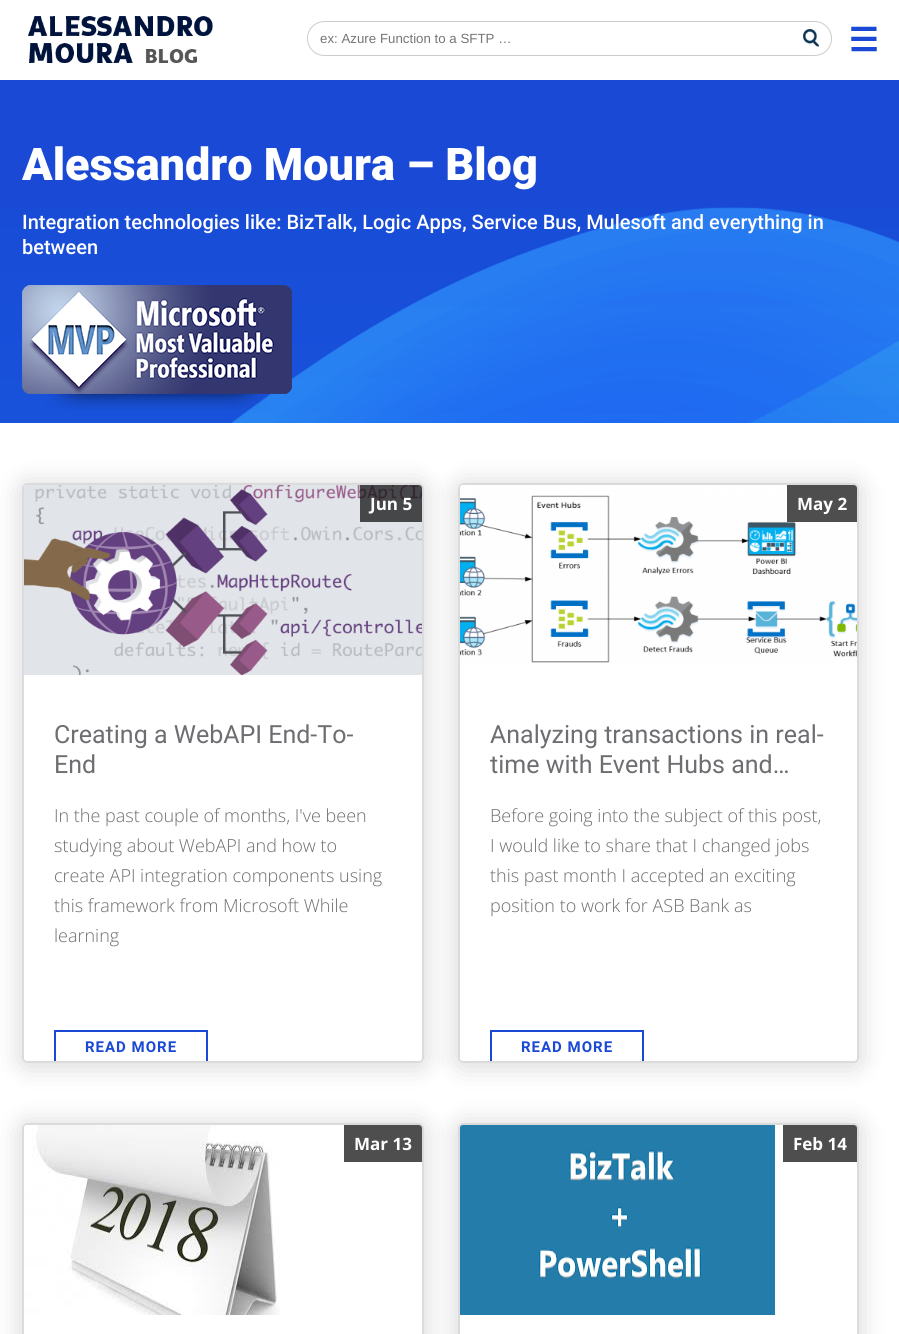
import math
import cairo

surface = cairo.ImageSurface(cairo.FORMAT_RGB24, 899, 1334)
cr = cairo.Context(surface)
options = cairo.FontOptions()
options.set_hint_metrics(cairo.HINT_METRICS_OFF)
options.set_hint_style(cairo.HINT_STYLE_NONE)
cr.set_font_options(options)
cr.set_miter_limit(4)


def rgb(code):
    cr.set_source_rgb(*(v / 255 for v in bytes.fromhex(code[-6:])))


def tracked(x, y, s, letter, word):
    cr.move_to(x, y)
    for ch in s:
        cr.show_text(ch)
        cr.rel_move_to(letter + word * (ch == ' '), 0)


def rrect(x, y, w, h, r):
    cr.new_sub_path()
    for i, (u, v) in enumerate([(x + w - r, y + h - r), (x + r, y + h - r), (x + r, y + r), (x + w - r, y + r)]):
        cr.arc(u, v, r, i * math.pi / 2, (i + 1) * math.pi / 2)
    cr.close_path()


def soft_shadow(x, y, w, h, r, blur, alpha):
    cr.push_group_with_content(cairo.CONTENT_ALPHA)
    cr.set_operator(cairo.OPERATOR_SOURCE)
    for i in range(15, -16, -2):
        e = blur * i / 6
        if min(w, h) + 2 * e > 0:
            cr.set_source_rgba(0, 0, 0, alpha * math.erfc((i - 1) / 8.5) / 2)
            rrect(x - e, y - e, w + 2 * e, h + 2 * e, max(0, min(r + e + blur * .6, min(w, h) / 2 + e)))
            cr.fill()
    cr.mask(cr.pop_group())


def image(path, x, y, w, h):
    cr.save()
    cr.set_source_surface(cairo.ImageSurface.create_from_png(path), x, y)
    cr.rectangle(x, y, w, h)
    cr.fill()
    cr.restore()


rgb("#ffffff")
cr.paint()
image("img/1.png", 28, 16, 185, 47)
rrect(307.5, 21.5, 524, 34, 17)
rgb("#cccccc")
cr.set_line_width(1)
cr.stroke()
image("img/2.png", 803, 29, 16, 18)
image("img/3.png", 851, 26, 26, 26)
rgb("#1949d5")
cr.rectangle(0, 80, 899, 127)
cr.fill()
image("img/4.png", 0, 207, 899, 216)
image("img/5.png", 22, 285, 270, 125)
cr.save()
cr.set_fill_rule(cairo.FILL_RULE_EVEN_ODD)
cr.new_path()
cr.move_to(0, 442)
cr.line_to(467, 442)
cr.line_to(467, 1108)
cr.line_to(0, 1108)
cr.close_path()
cr.move_to(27, 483)
cr.line_to(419, 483)
cr.curve_to(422, 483, 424, 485, 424, 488)
cr.line_to(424, 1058)
cr.curve_to(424, 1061, 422, 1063, 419, 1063)
cr.line_to(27, 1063)
cr.curve_to(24, 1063, 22, 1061, 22, 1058)
cr.line_to(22, 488)
cr.curve_to(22, 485, 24, 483, 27, 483)
cr.close_path()
cr.clip()
rgb("#010101")
soft_shadow(21, 484, 404, 582, 6, 13.5, 0.16)
cr.restore()
rrect(23, 484, 400, 578, 4)
rgb("#dbdbdb")
cr.set_line_width(2)
cr.stroke()
cr.save()
cr.set_fill_rule(cairo.FILL_RULE_EVEN_ODD)
cr.new_path()
cr.move_to(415, 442)
cr.line_to(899, 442)
cr.line_to(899, 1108)
cr.line_to(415, 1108)
cr.close_path()
cr.move_to(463, 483)
cr.line_to(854, 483)
cr.curve_to(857, 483, 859, 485, 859, 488)
cr.line_to(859, 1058)
cr.curve_to(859, 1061, 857, 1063, 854, 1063)
cr.line_to(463, 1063)
cr.curve_to(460, 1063, 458, 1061, 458, 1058)
cr.line_to(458, 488)
cr.curve_to(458, 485, 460, 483, 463, 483)
cr.close_path()
cr.clip()
rgb("#010101")
soft_shadow(457, 484, 403, 582, 6, 13.5, 0.16)
cr.restore()
image("img/6.png", 24, 485, 398, 190)
cr.set_source_rgba(0.067, 0.067, 0.071, 0.74)
cr.new_path()
cr.move_to(360, 485)
cr.line_to(419, 485)
cr.curve_to(420.5, 485, 422, 486.5, 422, 488)
cr.line_to(422, 522)
cr.line_to(360, 522)
cr.close_path()
cr.fill()
rgb("#1949d5")
cr.new_path()
cr.move_to(54, 1030)
cr.line_to(54, 1061)
cr.line_to(56, 1061)
cr.line_to(56, 1032)
cr.line_to(206, 1032)
cr.line_to(206, 1061)
cr.line_to(208, 1061)
cr.line_to(208, 1030)
cr.close_path()
cr.fill()
rrect(459, 484, 399, 578, 4)
rgb("#dbdbdb")
cr.stroke()
image("img/7.png", 460, 485, 397, 178)
cr.set_source_rgba(0.067, 0.067, 0.071, 0.74)
cr.new_path()
cr.move_to(787, 485)
cr.line_to(854, 485)
cr.curve_to(855.5, 485, 857, 486.5, 857, 488)
cr.line_to(857, 522)
cr.line_to(787, 522)
cr.close_path()
cr.fill()
rgb("#1949d5")
cr.new_path()
cr.move_to(490, 1030)
cr.line_to(490, 1061)
cr.line_to(492, 1061)
cr.line_to(492, 1032)
cr.line_to(642, 1032)
cr.line_to(642, 1061)
cr.line_to(644, 1061)
cr.line_to(644, 1030)
cr.close_path()
cr.fill()
cr.save()
cr.set_fill_rule(cairo.FILL_RULE_EVEN_ODD)
cr.new_path()
cr.move_to(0, 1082)
cr.line_to(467, 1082)
cr.line_to(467, 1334)
cr.line_to(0, 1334)
cr.close_path()
cr.move_to(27, 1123)
cr.line_to(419, 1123)
cr.curve_to(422, 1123, 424, 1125, 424, 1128)
cr.line_to(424, 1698)
cr.curve_to(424, 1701, 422, 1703, 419, 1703)
cr.line_to(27, 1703)
cr.curve_to(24, 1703, 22, 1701, 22, 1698)
cr.line_to(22, 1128)
cr.curve_to(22, 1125, 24, 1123, 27, 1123)
cr.close_path()
cr.clip()
rgb("#010101")
soft_shadow(21, 1124, 404, 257, 6, 13.5, 0.16)
cr.restore()
rrect(23, 1124, 400, 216, 4)
rgb("#dbdbdb")
cr.stroke()
image("img/8.png", 24, 1125, 256, 190)
cr.save()
cr.set_fill_rule(cairo.FILL_RULE_EVEN_ODD)
cr.new_path()
cr.move_to(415, 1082)
cr.line_to(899, 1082)
cr.line_to(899, 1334)
cr.line_to(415, 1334)
cr.close_path()
cr.move_to(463, 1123)
cr.line_to(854, 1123)
cr.curve_to(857, 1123, 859, 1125, 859, 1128)
cr.line_to(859, 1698)
cr.curve_to(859, 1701, 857, 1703, 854, 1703)
cr.line_to(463, 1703)
cr.curve_to(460, 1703, 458, 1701, 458, 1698)
cr.line_to(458, 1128)
cr.curve_to(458, 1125, 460, 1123, 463, 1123)
cr.close_path()
cr.clip()
rgb("#010101")
soft_shadow(457, 1124, 403, 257, 6, 13.5, 0.16)
cr.restore()
cr.set_source_rgba(0.067, 0.067, 0.071, 0.74)
cr.new_path()
cr.move_to(344, 1125)
cr.line_to(419, 1125)
cr.curve_to(420.5, 1125, 422, 1126.5, 422, 1128)
cr.line_to(422, 1162)
cr.line_to(344, 1162)
cr.close_path()
cr.fill()
rrect(459, 1124, 399, 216, 4)
rgb("#dbdbdb")
cr.stroke()
image("img/9.png", 460, 1125, 315, 190)
cr.set_source_rgba(0.067, 0.067, 0.071, 0.74)
cr.new_path()
cr.move_to(783, 1125)
cr.line_to(854, 1125)
cr.curve_to(855.5, 1125, 857, 1126.5, 857, 1128)
cr.line_to(857, 1162)
cr.line_to(783, 1162)
cr.close_path()
cr.fill()
cr.select_font_face("Liberation Sans")
cr.set_font_size(13.3)
rgb("#757575")
cr.move_to(320, 43)
cr.show_text("ex: Azure Function to a SFTP …")
cr.select_font_face("Roboto Black")
cr.set_font_size(45)
rgb("#ffffff")
cr.move_to(22, 180)
cr.show_text("Alessandro Moura – Blog")
cr.select_font_face("Roboto Medium")
cr.set_font_size(20)
cr.move_to(22, 229)
cr.show_text("Integration technologies like: BizTalk, Logic Apps, Service Bus, Mulesoft and everything in")
cr.move_to(22, 254)
cr.show_text("between")
cr.select_font_face("Open Sans", cairo.FONT_SLANT_NORMAL, cairo.FONT_WEIGHT_BOLD)
cr.set_font_size(17)
cr.move_to(370, 510)
cr.show_text("Jun 5")
cr.select_font_face("Roboto")
cr.set_font_size(25)
rgb("#6d6e71")
cr.move_to(54, 743)
cr.show_text("Creating a WebAPI End-To-")
cr.move_to(54, 773)
cr.show_text("End")
cr.select_font_face("Open Sans Light")
cr.set_font_size(18)
for x, y, s in [
    (54, 822, "In the past couple of months, I've been"),
    (54, 852, "studying about WebAPI and how to"),
    (54, 882, "create API integration components using"),
    (54, 912, "this framework from Microsoft While"),
    (54, 942, "learning"),
]:
    cr.move_to(x, y)
    cr.show_text(s)
cr.select_font_face("Roboto", cairo.FONT_SLANT_NORMAL, cairo.FONT_WEIGHT_BOLD)
cr.set_font_size(15)
rgb("#1949d5")
tracked(85, 1052, "READ MORE", 1, 0)
cr.select_font_face("Open Sans", cairo.FONT_SLANT_NORMAL, cairo.FONT_WEIGHT_BOLD)
cr.set_font_size(17)
rgb("#ffffff")
cr.move_to(797, 510)
cr.show_text("May 2")
cr.select_font_face("Roboto")
cr.set_font_size(25)
rgb("#6d6e71")
cr.move_to(490, 743)
cr.show_text("Analyzing transactions in real-")
cr.move_to(490, 773)
cr.show_text("time with Event Hubs and…")
cr.select_font_face("Open Sans Light")
cr.set_font_size(18)
for x, y, s in [
    (490, 822, "Before going into the subject of this post,"),
    (490, 852, "I would like to share that I changed jobs"),
    (490, 882, "this past month I accepted an exciting"),
    (490, 912, "position to work for ASB Bank as"),
]:
    cr.move_to(x, y)
    cr.show_text(s)
cr.select_font_face("Roboto", cairo.FONT_SLANT_NORMAL, cairo.FONT_WEIGHT_BOLD)
cr.set_font_size(15)
rgb("#1949d5")
tracked(521, 1052, "READ MORE", 1, 0)
cr.select_font_face("Open Sans", cairo.FONT_SLANT_NORMAL, cairo.FONT_WEIGHT_BOLD)
cr.set_font_size(17)
rgb("#ffffff")
cr.move_to(354, 1150)
cr.show_text("Mar 13")
cr.move_to(793, 1150)
cr.show_text("Feb 14")
surface.write_to_png("page.png")
